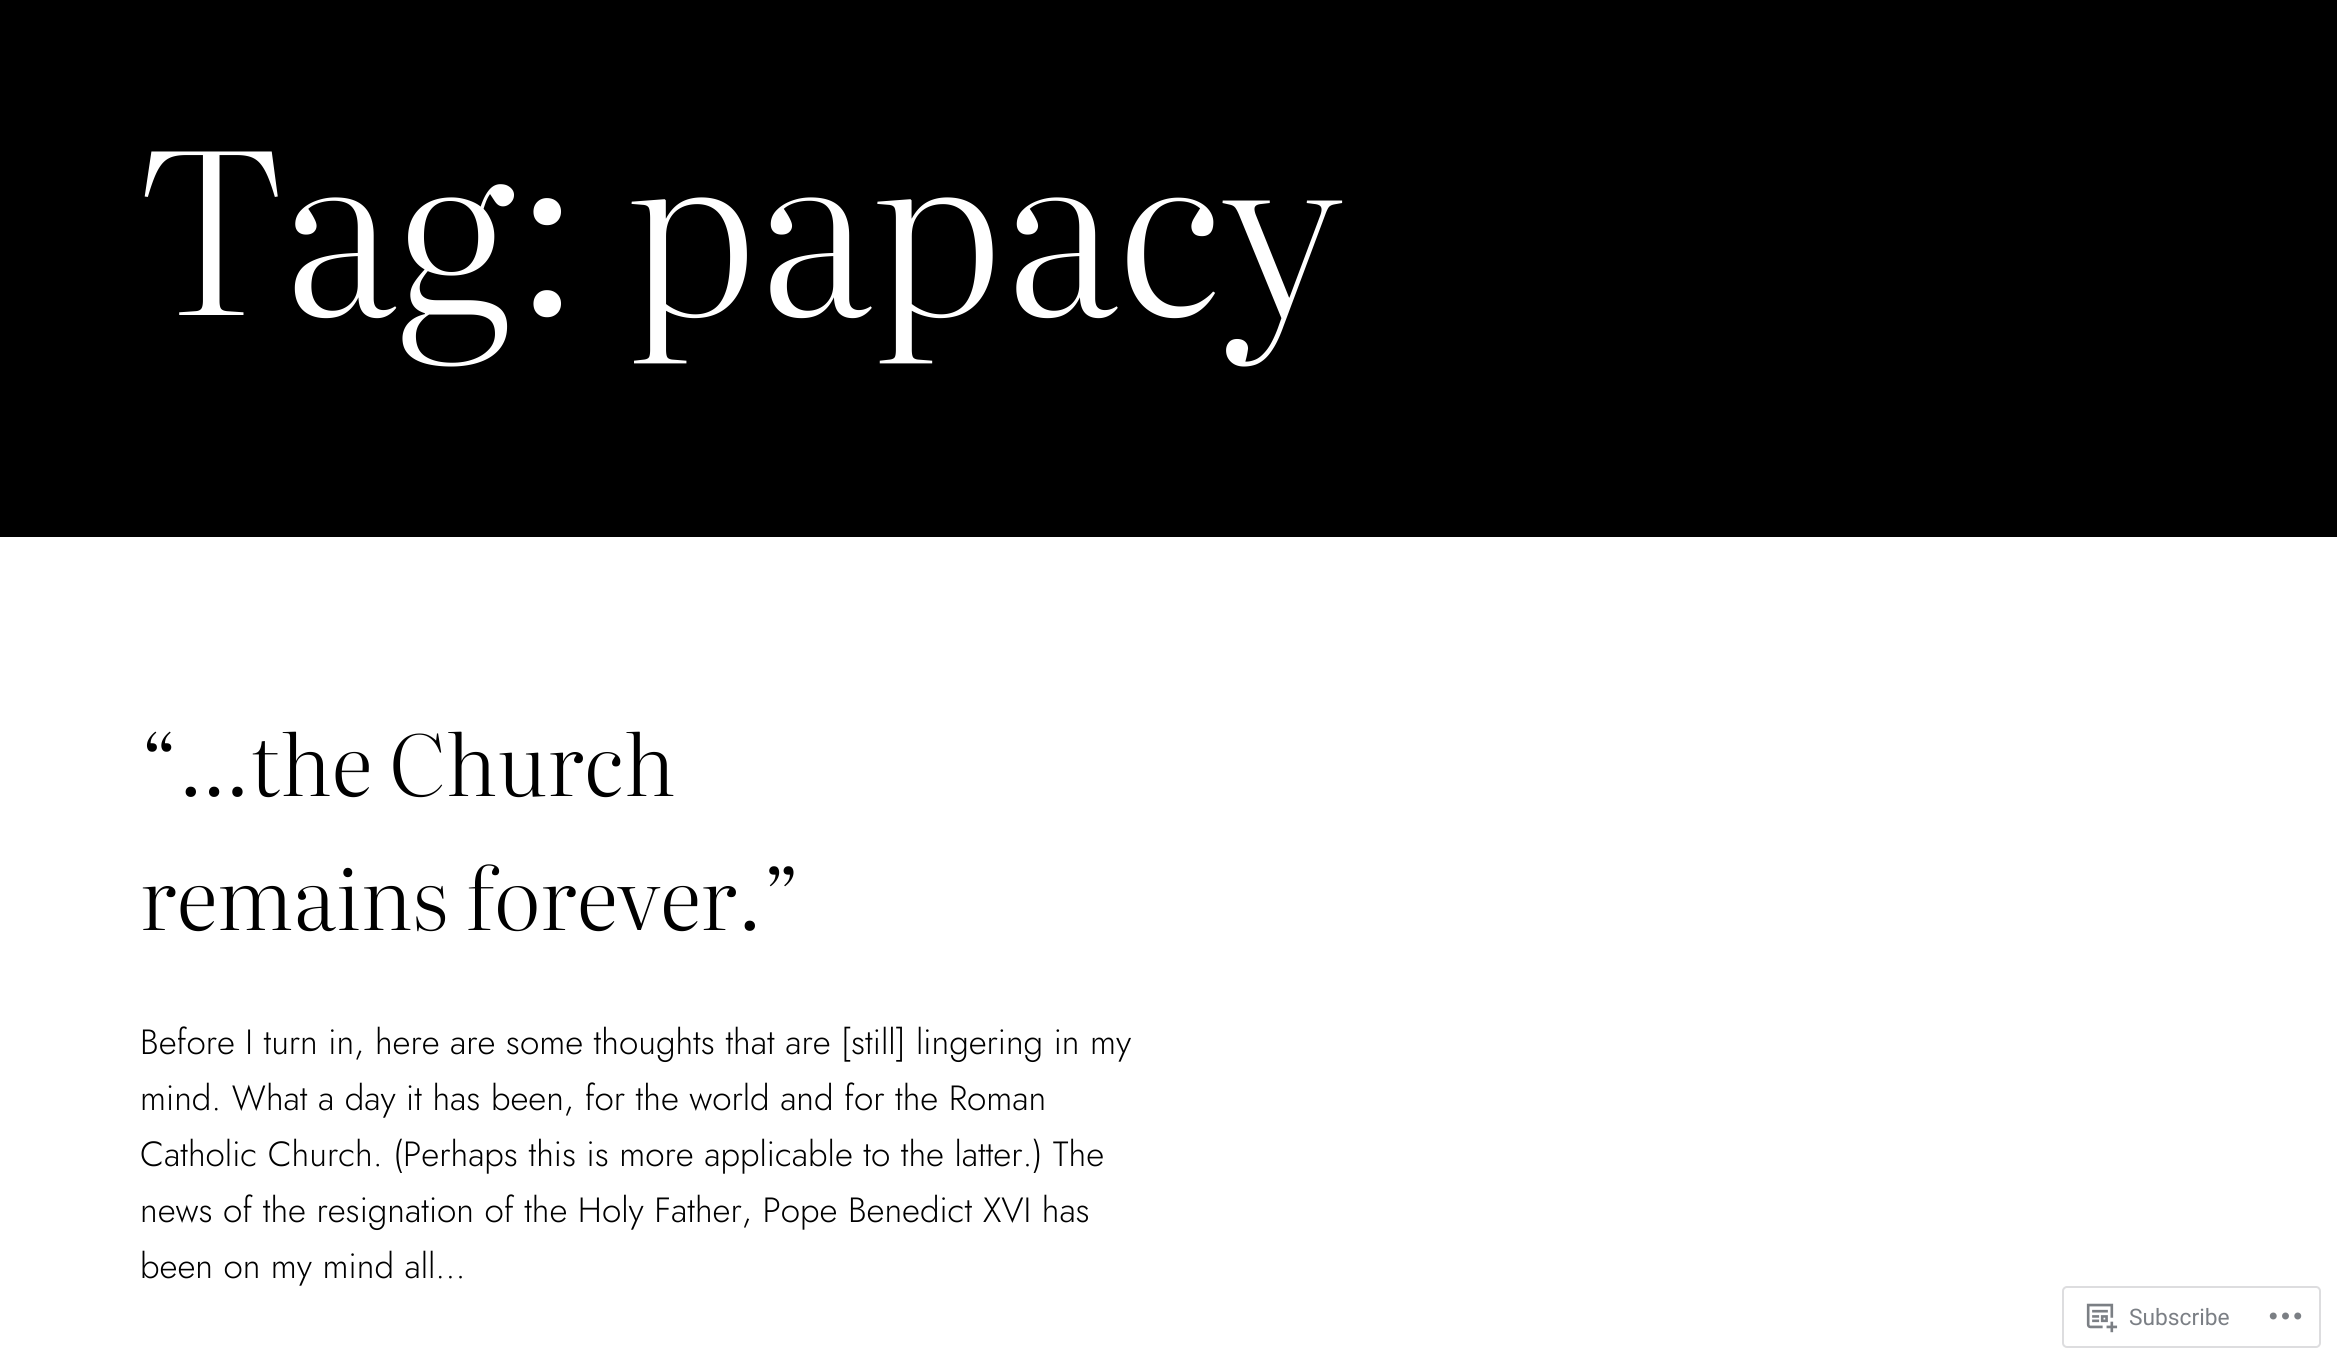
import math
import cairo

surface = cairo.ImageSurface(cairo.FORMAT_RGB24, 2337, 1364)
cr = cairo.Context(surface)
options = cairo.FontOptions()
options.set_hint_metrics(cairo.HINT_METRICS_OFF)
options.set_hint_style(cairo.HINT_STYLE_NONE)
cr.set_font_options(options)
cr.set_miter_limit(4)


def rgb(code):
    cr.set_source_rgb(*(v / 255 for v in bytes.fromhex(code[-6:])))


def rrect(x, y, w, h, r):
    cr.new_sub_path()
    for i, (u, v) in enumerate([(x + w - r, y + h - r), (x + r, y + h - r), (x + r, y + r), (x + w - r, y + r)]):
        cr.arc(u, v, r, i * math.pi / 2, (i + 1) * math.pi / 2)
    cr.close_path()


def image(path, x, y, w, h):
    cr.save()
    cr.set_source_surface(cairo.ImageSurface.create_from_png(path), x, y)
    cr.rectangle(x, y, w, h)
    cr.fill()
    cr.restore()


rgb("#ffffff")
cr.paint()
rgb("#000000")
cr.rectangle(0, 0, 2337, 537)
cr.fill()
rrect(2063, 1287, 257, 60, 4)
rgb("#dddddf")
cr.stroke()
image("img/1.png", 2086, 1303, 32, 30)
image("img/2.png", 2269, 1312, 33, 8)
cr.select_font_face("Literata Light")
cr.set_font_size(224)
rgb("#ffffff")
cr.move_to(140, 315)
cr.show_text("Tag: papacy")
cr.set_font_size(84)
rgb("#000000")
cr.move_to(140, 796)
cr.show_text("“…the Church")
cr.move_to(140, 930)
cr.show_text("remains forever.”")
cr.select_font_face("Jost Light")
cr.set_font_size(35)
for x, y, s in [
    (140, 1054, "Before I turn in, here are some thoughts that are [still] lingering in my"),
    (140, 1110, "mind. What a day it has been, for the world and for the Roman"),
    (140, 1166, "Catholic Church. (Perhaps this is more applicable to the latter.) The"),
    (140, 1222, "news of the resignation of the Holy Father, Pope Benedict XVI has"),
    (140, 1278, "been on my mind all…"),
]:
    cr.move_to(x, y)
    cr.show_text(s)
cr.select_font_face("Roboto")
cr.set_font_size(22.75)
rgb("#7b7f85")
cr.move_to(2129, 1325)
cr.show_text("Subscribe")
surface.write_to_png("page.png")
